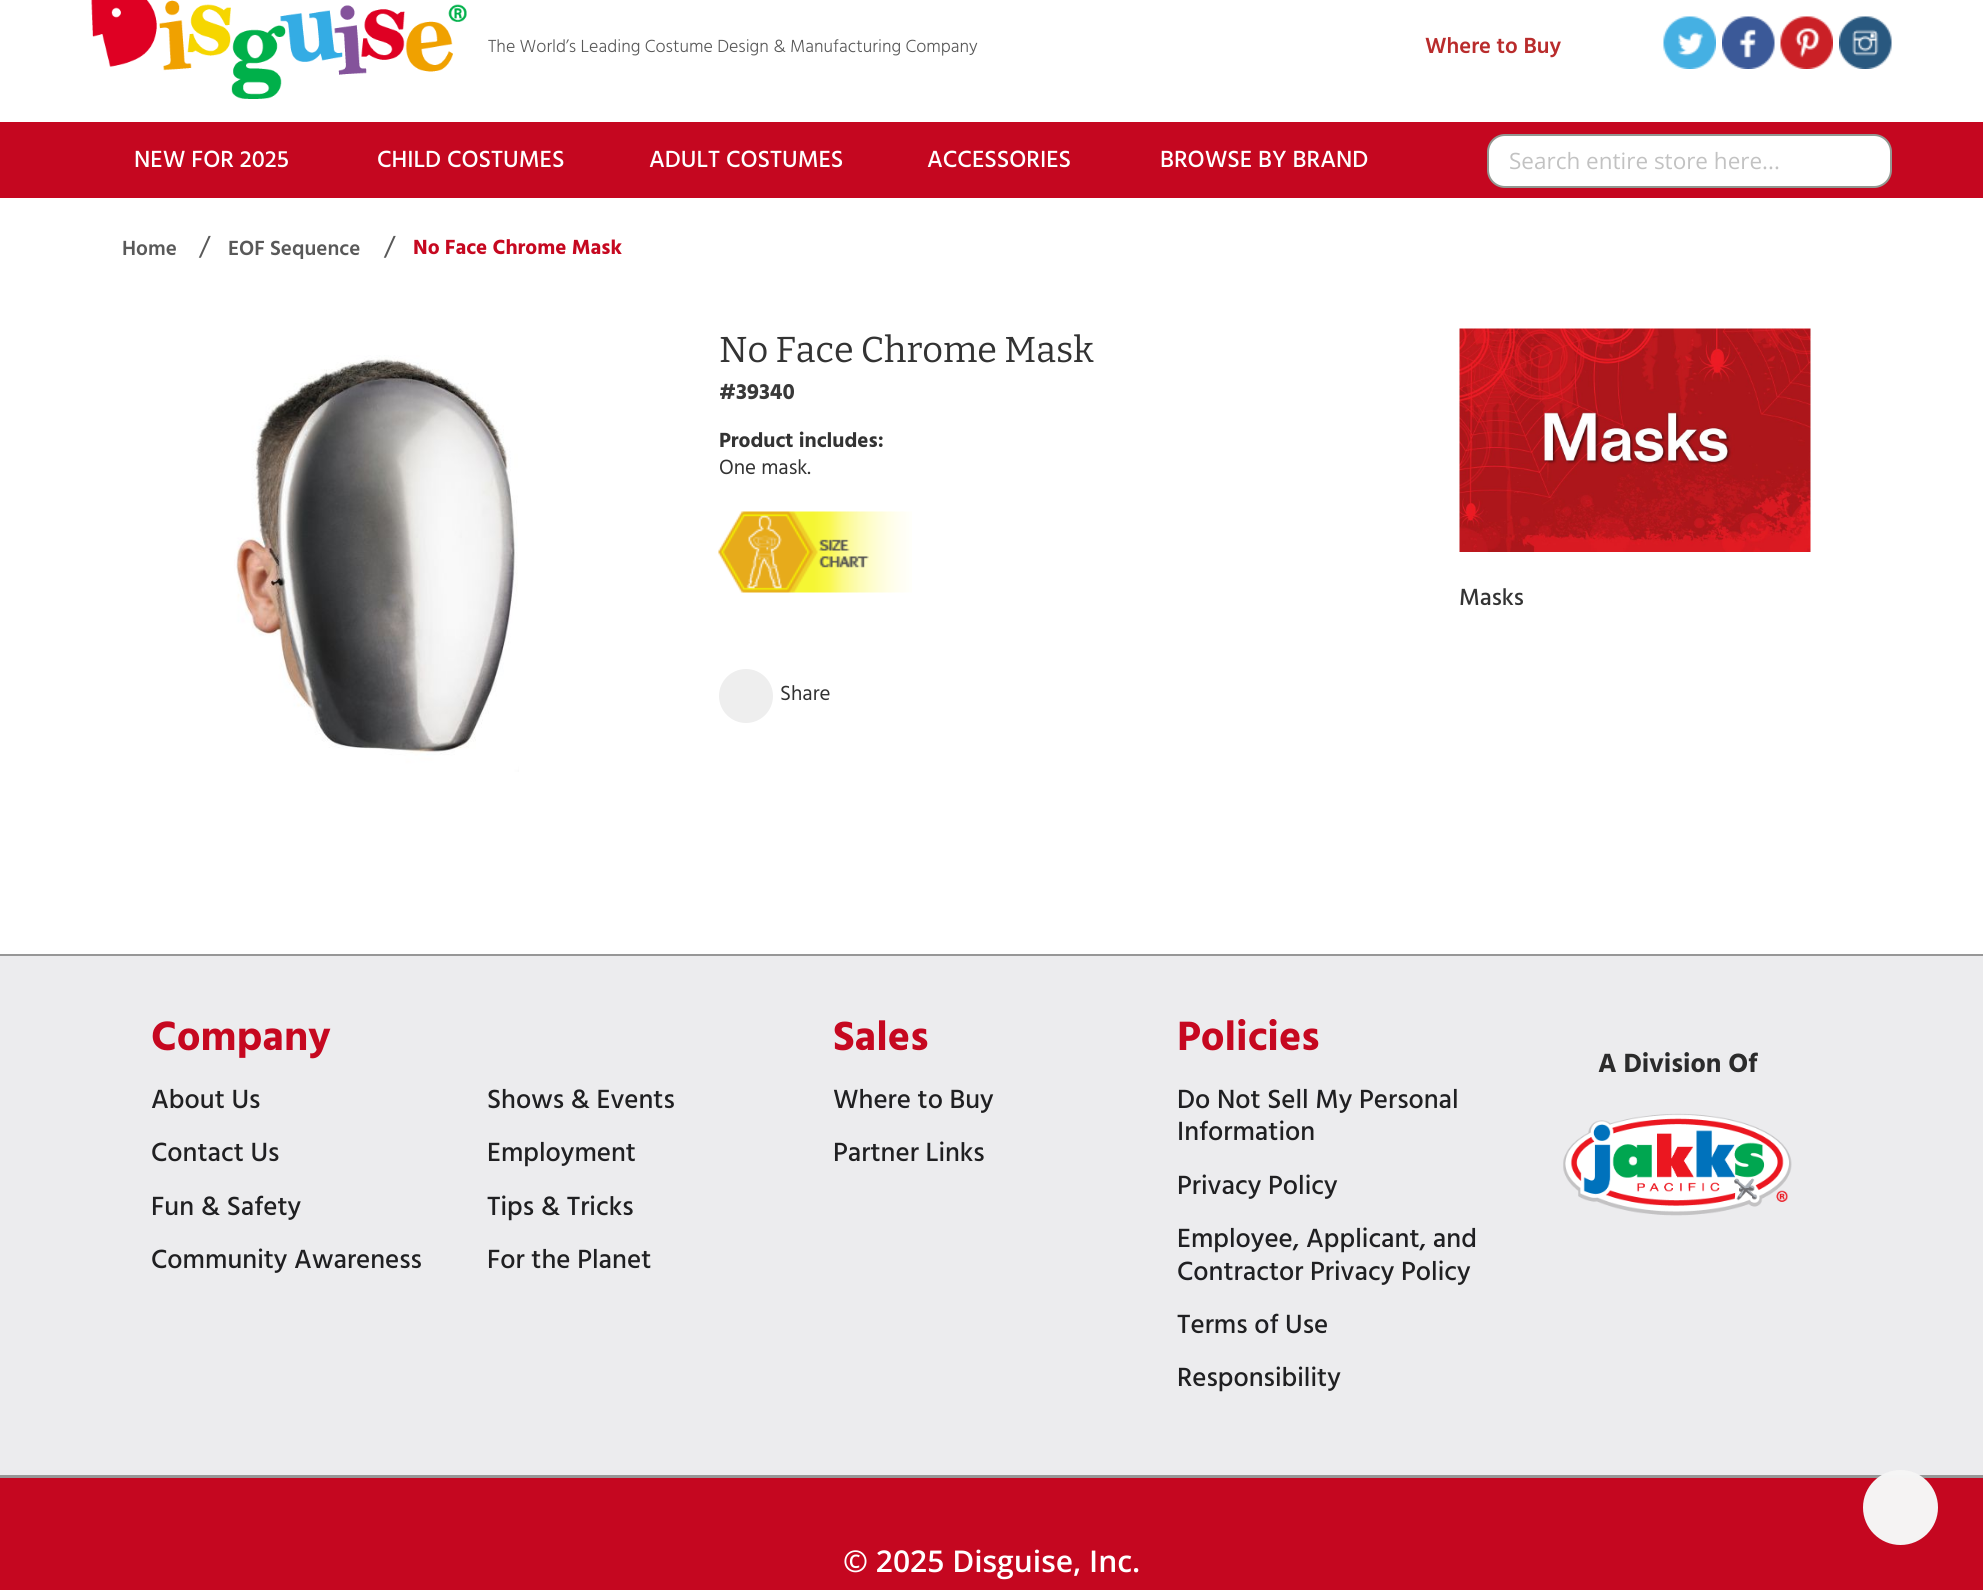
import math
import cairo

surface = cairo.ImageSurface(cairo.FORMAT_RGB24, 1983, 1590)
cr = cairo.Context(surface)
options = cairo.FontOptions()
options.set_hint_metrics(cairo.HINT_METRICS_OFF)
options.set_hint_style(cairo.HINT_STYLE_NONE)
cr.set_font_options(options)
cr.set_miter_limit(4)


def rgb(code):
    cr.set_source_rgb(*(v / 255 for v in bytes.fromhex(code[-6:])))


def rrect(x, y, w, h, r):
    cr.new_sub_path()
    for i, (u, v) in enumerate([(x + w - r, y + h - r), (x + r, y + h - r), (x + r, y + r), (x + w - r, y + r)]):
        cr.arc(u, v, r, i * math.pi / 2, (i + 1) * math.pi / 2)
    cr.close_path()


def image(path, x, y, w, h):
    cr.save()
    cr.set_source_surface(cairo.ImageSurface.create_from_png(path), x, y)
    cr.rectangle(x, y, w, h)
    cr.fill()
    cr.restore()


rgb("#ffffff")
cr.paint()
image("img/1.png", 91, 0, 376, 99)
image("img/2.png", 1663, 16, 53, 53)
image("img/3.png", 1722, 16, 53, 53)
image("img/4.png", 1780, 16, 53, 53)
image("img/5.png", 1839, 16, 53, 53)
rgb("#c50720")
cr.rectangle(0, 122, 1983, 76)
cr.fill()
rgb("#ffffff")
rrect(1488, 135, 403, 52, 17)
cr.fill_preserve()
rgb("#939892")
cr.stroke()
image("img/6.png", 234, 355, 285, 417)
image("img/7.png", 718, 511, 194, 82)
rgb("#eeeeee")
cr.arc(746, 696, 27, 0, 2 * math.pi)
cr.fill()
image("img/8.png", 1459, 328, 352, 224)
rgb("#ececee")
cr.rectangle(0, 956, 1983, 519)
cr.fill()
rgb("#979797")
cr.rectangle(0, 954, 1983, 2)
cr.fill()
image("img/9.png", 1563, 1113, 229, 103)
rgb("#c50720")
cr.rectangle(0, 1478, 1983, 112)
cr.fill()
rgb("#979797")
cr.rectangle(0, 1475, 1983, 3)
cr.fill()
cr.set_source_rgba(0.961, 0.961, 0.961, 0.99)
cr.arc(1900.5, 1507.5, 37.5, 0, 2 * math.pi)
cr.fill()
cr.select_font_face("Hind Light")
cr.set_font_size(18)
rgb("#595959")
cr.move_to(488, 52)
cr.show_text("The World’s Leading Costume Design & Manufacturing Company")
cr.select_font_face("Hind SemiBold")
cr.set_font_size(22.5)
rgb("#b92c2c")
cr.move_to(1425, 53)
cr.show_text("Where to Buy")
cr.select_font_face("Hind Medium")
cr.set_font_size(24)
rgb("#ffffff")
for x, y, s in [
    (134, 167, "NEW FOR 2025"),
    (377, 167, "CHILD COSTUMES"),
    (649, 167, "ADULT COSTUMES"),
    (927, 167, "ACCESSORIES"),
    (1160, 167, "BROWSE BY BRAND"),
]:
    cr.move_to(x, y)
    cr.show_text(s)
cr.select_font_face("Open Sans")
cr.set_font_size(22.5)
rgb("#c2c2c2")
cr.move_to(1509, 169)
cr.show_text("Search entire store here...")
cr.select_font_face("Hind SemiBold")
cr.set_font_size(21)
rgb("#595959")
cr.move_to(122, 255)
cr.show_text("Home")
cr.select_font_face("Hind")
cr.set_font_size(27)
cr.move_to(199, 255)
cr.show_text("/")
cr.select_font_face("Hind SemiBold")
cr.set_font_size(21)
cr.move_to(228, 255)
cr.show_text("EOF Sequence")
cr.select_font_face("Hind")
cr.set_font_size(27)
cr.move_to(384, 255)
cr.show_text("/")
cr.select_font_face("Hind", cairo.FONT_SLANT_NORMAL, cairo.FONT_WEIGHT_BOLD)
cr.set_font_size(21)
rgb("#c60820")
cr.move_to(413, 254)
cr.show_text("No Face Chrome Mask")
cr.select_font_face("Bitter")
cr.set_font_size(36)
rgb("#333333")
cr.move_to(719, 362)
cr.show_text("No Face Chrome Mask")
cr.select_font_face("Hind", cairo.FONT_SLANT_NORMAL, cairo.FONT_WEIGHT_BOLD)
cr.set_font_size(22.5)
rgb("#393939")
cr.move_to(719, 399)
cr.show_text("#39340")
cr.set_font_size(21)
rgb("#333333")
cr.move_to(719, 447)
cr.show_text("Product includes:")
cr.select_font_face("Hind")
cr.move_to(719, 474)
cr.show_text("One mask.")
cr.move_to(780, 700)
cr.show_text("Share")
cr.select_font_face("Hind Medium")
cr.set_font_size(24)
cr.move_to(1459, 605)
cr.show_text("Masks")
cr.select_font_face("Hind", cairo.FONT_SLANT_NORMAL, cairo.FONT_WEIGHT_BOLD)
cr.set_font_size(42)
rgb("#c60820")
cr.move_to(151, 1050)
cr.show_text("Company")
cr.select_font_face("Hind Medium")
cr.set_font_size(27)
rgb("#202022")
for x, y, s in [
    (151, 1108, "About Us"),
    (487, 1108, "Shows & Events"),
    (151, 1161, "Contact Us"),
    (487, 1161, "Employment"),
    (151, 1215, "Fun & Safety"),
    (487, 1215, "Tips & Tricks"),
    (151, 1268, "Community Awareness"),
    (487, 1268, "For the Planet"),
]:
    cr.move_to(x, y)
    cr.show_text(s)
cr.select_font_face("Hind", cairo.FONT_SLANT_NORMAL, cairo.FONT_WEIGHT_BOLD)
cr.set_font_size(42)
rgb("#c60820")
cr.move_to(833, 1050)
cr.show_text("Sales")
cr.select_font_face("Hind Medium")
cr.set_font_size(27)
rgb("#202022")
cr.move_to(833, 1108)
cr.show_text("Where to Buy")
cr.move_to(833, 1161)
cr.show_text("Partner Links")
cr.select_font_face("Hind", cairo.FONT_SLANT_NORMAL, cairo.FONT_WEIGHT_BOLD)
cr.set_font_size(42)
rgb("#c60820")
cr.move_to(1177, 1050)
cr.show_text("Policies")
cr.select_font_face("Hind Medium")
cr.set_font_size(27)
rgb("#202022")
for x, y, s in [
    (1177, 1108, "Do Not Sell My Personal"),
    (1177, 1140, "Information"),
    (1177, 1194, "Privacy Policy"),
    (1177, 1247, "Employee, Applicant, and"),
    (1177, 1280, "Contractor Privacy Policy"),
    (1177, 1333, "Terms of Use"),
    (1177, 1386, "Responsibility"),
]:
    cr.move_to(x, y)
    cr.show_text(s)
cr.select_font_face("Hind", cairo.FONT_SLANT_NORMAL, cairo.FONT_WEIGHT_BOLD)
rgb("#2b2b2b")
cr.move_to(1598, 1072)
cr.show_text("A Division Of")
cr.select_font_face("Open Sans SemiBold")
cr.set_font_size(30)
rgb("#ffffff")
cr.move_to(843, 1572)
cr.show_text("© 2025 Disguise, Inc.")
surface.write_to_png("page.png")
